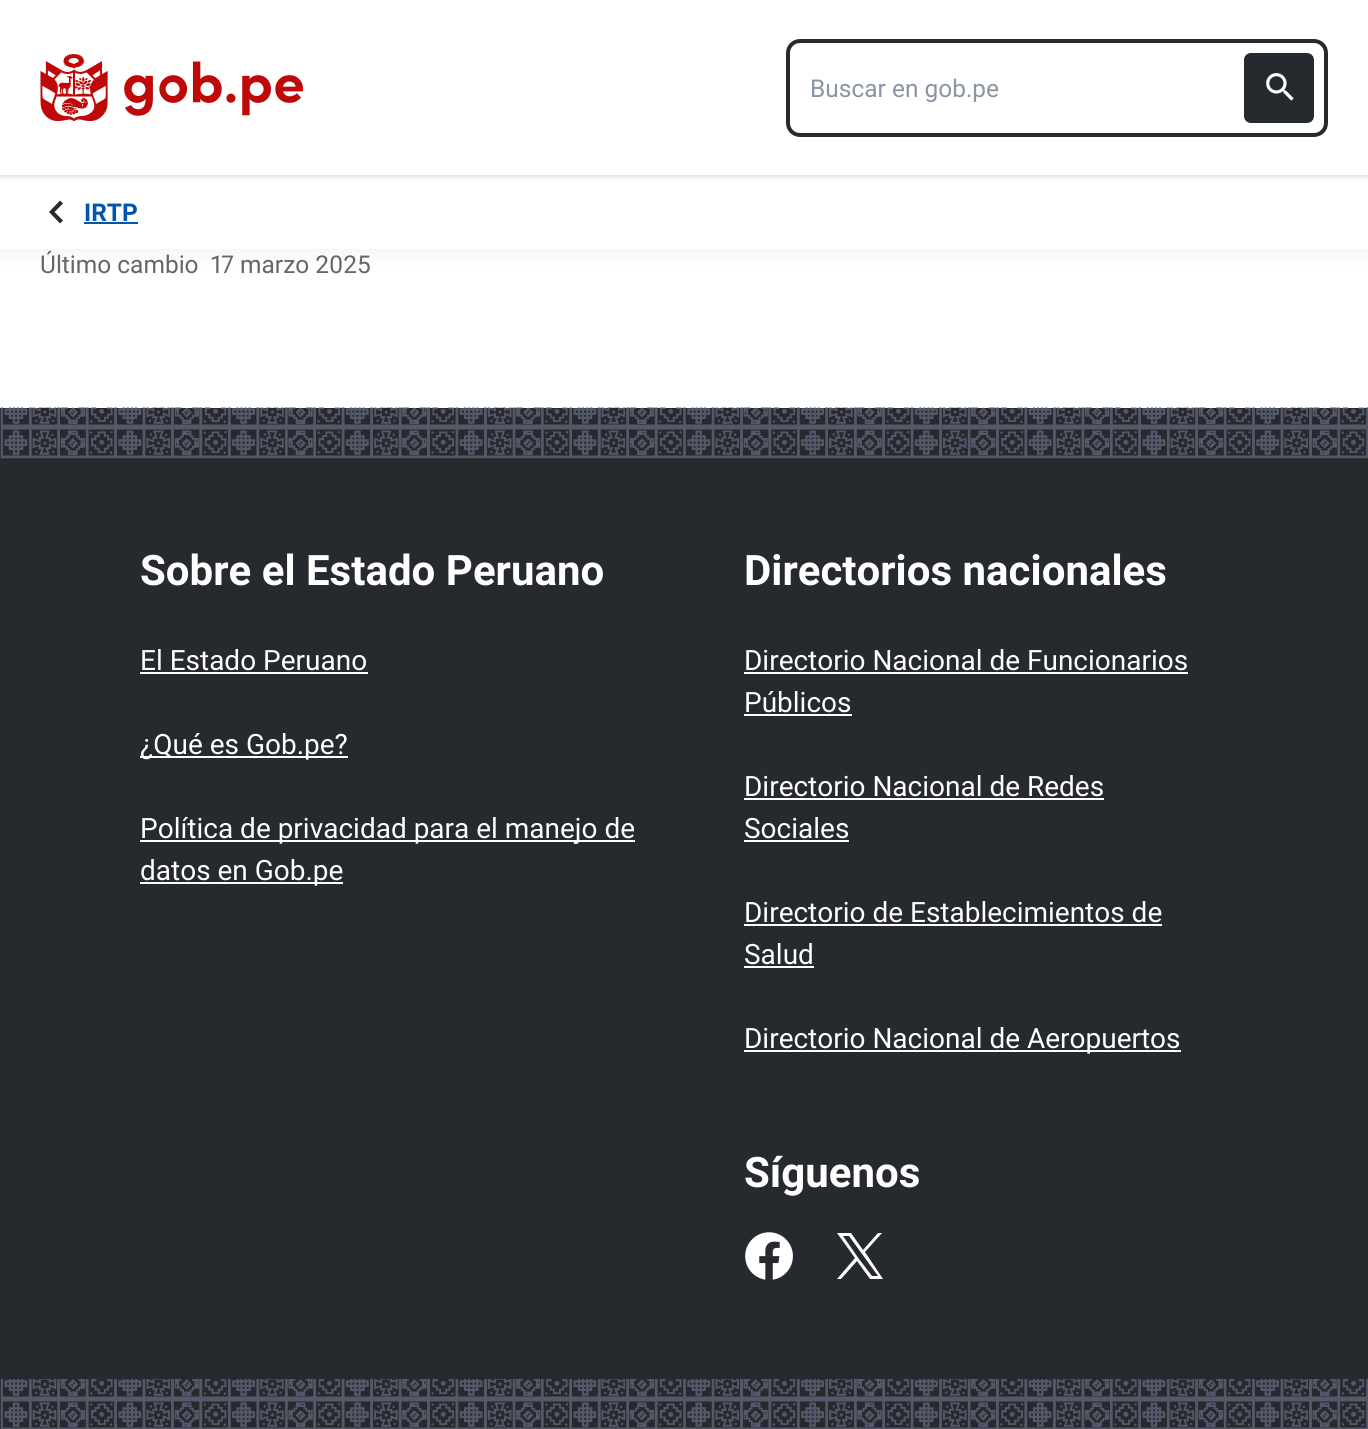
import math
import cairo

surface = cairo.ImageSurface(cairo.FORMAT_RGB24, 1368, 1429)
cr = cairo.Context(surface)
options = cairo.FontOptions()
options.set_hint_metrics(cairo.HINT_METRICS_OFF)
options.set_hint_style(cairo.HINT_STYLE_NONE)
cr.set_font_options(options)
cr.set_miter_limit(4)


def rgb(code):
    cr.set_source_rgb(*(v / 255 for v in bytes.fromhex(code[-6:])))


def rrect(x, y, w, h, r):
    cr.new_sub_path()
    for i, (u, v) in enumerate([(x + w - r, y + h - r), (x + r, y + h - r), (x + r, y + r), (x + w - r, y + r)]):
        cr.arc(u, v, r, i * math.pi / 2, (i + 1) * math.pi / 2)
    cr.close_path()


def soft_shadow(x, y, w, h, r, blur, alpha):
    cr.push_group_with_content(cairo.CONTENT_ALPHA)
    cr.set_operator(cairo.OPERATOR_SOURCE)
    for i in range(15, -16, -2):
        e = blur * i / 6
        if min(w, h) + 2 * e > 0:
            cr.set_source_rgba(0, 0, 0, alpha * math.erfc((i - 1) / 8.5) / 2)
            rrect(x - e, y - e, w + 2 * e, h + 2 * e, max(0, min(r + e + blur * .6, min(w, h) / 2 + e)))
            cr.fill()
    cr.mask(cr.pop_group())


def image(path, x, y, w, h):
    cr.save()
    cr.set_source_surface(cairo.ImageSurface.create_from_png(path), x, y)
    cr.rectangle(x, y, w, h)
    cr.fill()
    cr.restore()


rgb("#ffffff")
cr.paint()
rgb("#bec7d3")
soft_shadow(-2, 175, 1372, 77, 0, 9.5, 0.25)
rgb("#ffffff")
cr.rectangle(0, 175, 1368, 74)
cr.fill()
rgb("#000000")
soft_shadow(2, 4, 1365, 171, 0, 2, 0.1)
soft_shadow(0, 2, 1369, 175, 0, 2.5, 0.1)
rgb("#ffffff")
cr.rectangle(0, 0, 1368, 175)
cr.fill()
image("img/1.png", 40, 54, 263, 67)
rrect(788, 41, 538, 94, 12)
rgb("#26292e")
cr.set_line_width(4)
cr.stroke()
rrect(1244, 53, 70, 70, 7)
cr.fill()
image("img/2.png", 1266, 73, 28, 28)
cr.new_path()
cr.move_to(63, 203.5)
cr.line_to(54.5, 212)
cr.line_to(63, 220.5)
cr.line_to(60, 223.5)
cr.line_to(49, 212)
cr.line_to(60, 200.5)
cr.close_path()
cr.fill()
rgb("#0056ac")
cr.rectangle(84, 222, 54, 2)
cr.fill()
rgb("#26292e")
cr.rectangle(0, 408, 1368, 971)
cr.fill()
image("img/3.png", 0, 407, 1368, 52)
for x, y, w, h, color in [
    (140, 672, 228, 2, "#ffffff"),
    (140, 756, 208, 2, "#ffffff"),
    (140, 840, 495, 2, "#ffffff"),
    (140, 882, 203, 2, "#ffffff"),
    (744, 672, 444, 2, "#ffffff"),
    (744, 714, 108, 2, "#ffffff"),
    (744, 798, 360, 2, "#ffffff"),
    (744, 840, 105, 2, "#ffffff"),
    (744, 924, 418, 2, "#ffffff"),
    (744, 966, 70, 2, "#ffffff"),
    (744, 1050, 437, 2, "#ffffff"),
]:
    rgb(color)
    cr.rectangle(x, y, w, h)
    cr.fill()
image("img/4.png", 745, 1232, 48, 48)
cr.new_path()
cr.move_to(865, 1252)
cr.line_to(882, 1233)
cr.line_to(878, 1233)
cr.line_to(863, 1250)
cr.line_to(851, 1233)
cr.line_to(837, 1233)
cr.line_to(855, 1258)
cr.line_to(837, 1279)
cr.line_to(841, 1279)
cr.line_to(857, 1261)
cr.line_to(870, 1279)
cr.line_to(883, 1279)
cr.close_path()
cr.move_to(859, 1259)
cr.line_to(843, 1236)
cr.line_to(849, 1236)
cr.line_to(878, 1276)
cr.line_to(872, 1276)
cr.close_path()
cr.fill()
rgb("#26292e")
cr.rectangle(0, 1379, 1367, 50)
cr.fill()
image("img/5.png", 0, 1379, 1368, 50)
cr.select_font_face("Roboto")
cr.set_font_size(24.5)
rgb("#8a94a2")
cr.move_to(810, 97)
cr.show_text("Buscar en gob.pe")
cr.select_font_face("Roboto", cairo.FONT_SLANT_NORMAL, cairo.FONT_WEIGHT_BOLD)
rgb("#0056ac")
cr.move_to(84, 221)
cr.show_text("IRTP")
cr.select_font_face("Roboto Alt")
rgb("#646565")
cr.move_to(40, 273)
cr.show_text("Último cambio  17 marzo 2025")
cr.select_font_face("Roboto", cairo.FONT_SLANT_NORMAL, cairo.FONT_WEIGHT_BOLD)
cr.set_font_size(42)
rgb("#ffffff")
cr.move_to(140, 585)
cr.show_text("Sobre el Estado Peruano")
cr.select_font_face("Roboto")
cr.set_font_size(28)
for x, y, s in [
    (140, 670, "El Estado Peruano"),
    (140, 754, "¿Qué es Gob.pe?"),
    (140, 838, "Política de privacidad para el manejo de"),
    (140, 880, "datos en Gob.pe"),
]:
    cr.move_to(x, y)
    cr.show_text(s)
cr.select_font_face("Roboto", cairo.FONT_SLANT_NORMAL, cairo.FONT_WEIGHT_BOLD)
cr.set_font_size(42)
cr.move_to(744, 585)
cr.show_text("Directorios nacionales")
cr.select_font_face("Roboto")
cr.set_font_size(28)
for x, y, s in [
    (744, 670, "Directorio Nacional de Funcionarios"),
    (744, 712, "Públicos"),
    (744, 796, "Directorio Nacional de Redes"),
    (744, 838, "Sociales"),
    (744, 922, "Directorio de Establecimientos de"),
    (744, 964, "Salud"),
    (744, 1048, "Directorio Nacional de Aeropuertos"),
]:
    cr.move_to(x, y)
    cr.show_text(s)
cr.select_font_face("Roboto", cairo.FONT_SLANT_NORMAL, cairo.FONT_WEIGHT_BOLD)
cr.set_font_size(42)
cr.move_to(744, 1187)
cr.show_text("Síguenos")
surface.write_to_png("page.png")
